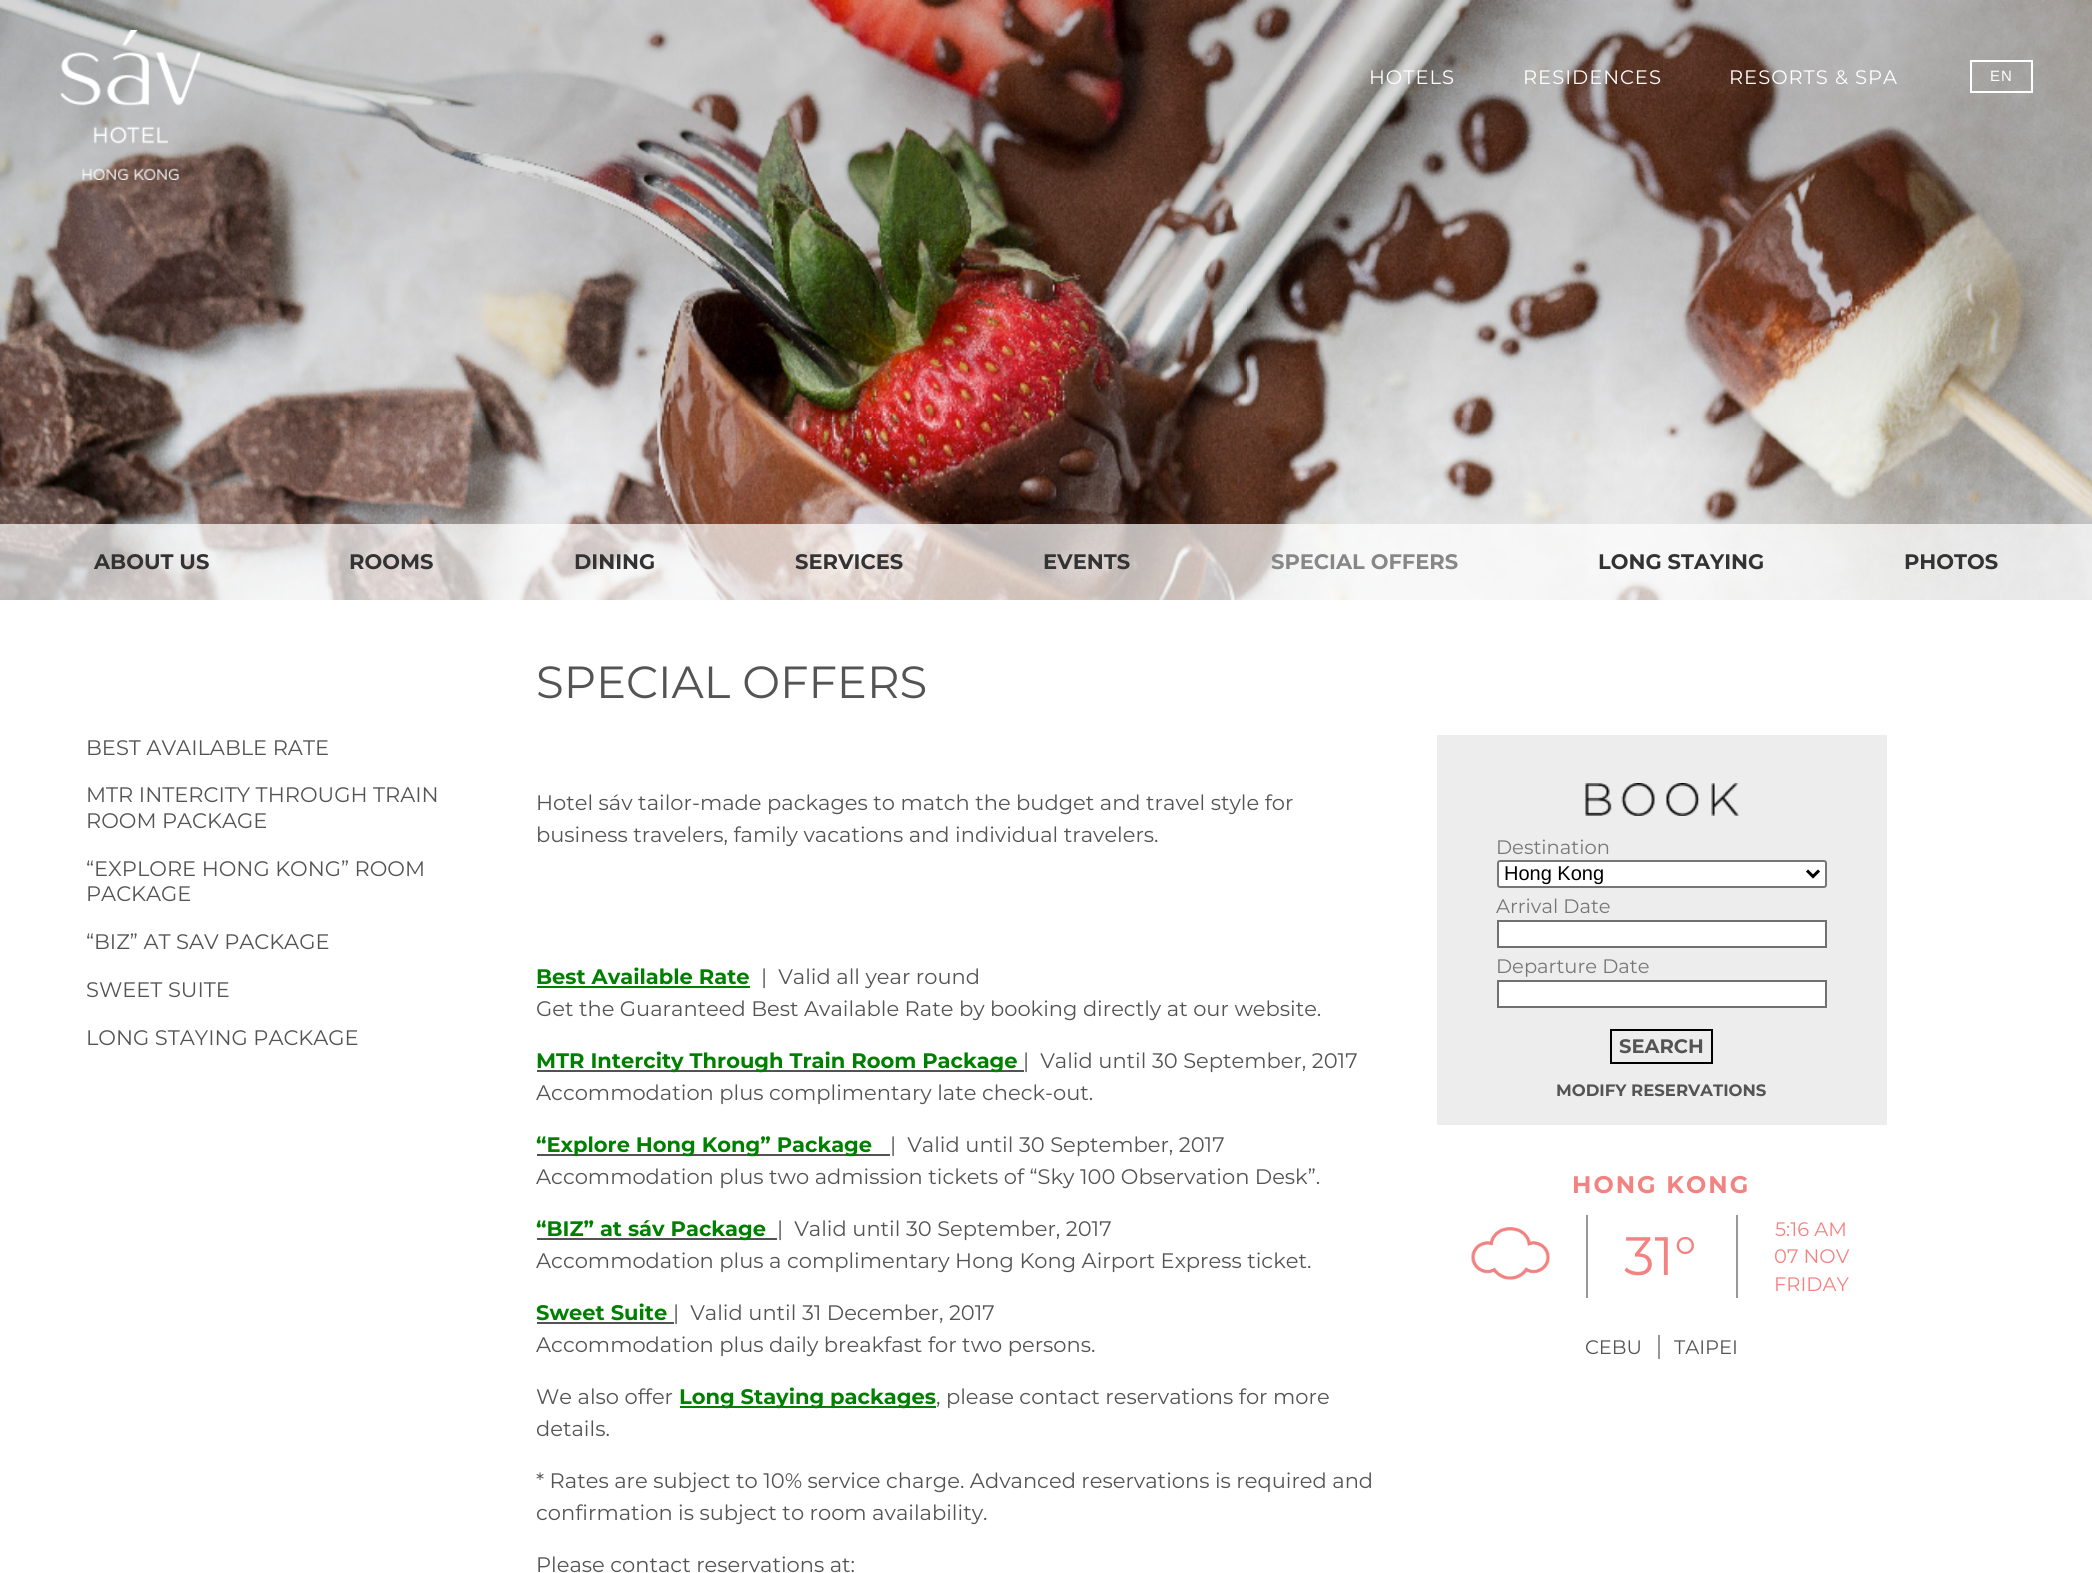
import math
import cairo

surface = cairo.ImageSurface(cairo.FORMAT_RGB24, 2092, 1573)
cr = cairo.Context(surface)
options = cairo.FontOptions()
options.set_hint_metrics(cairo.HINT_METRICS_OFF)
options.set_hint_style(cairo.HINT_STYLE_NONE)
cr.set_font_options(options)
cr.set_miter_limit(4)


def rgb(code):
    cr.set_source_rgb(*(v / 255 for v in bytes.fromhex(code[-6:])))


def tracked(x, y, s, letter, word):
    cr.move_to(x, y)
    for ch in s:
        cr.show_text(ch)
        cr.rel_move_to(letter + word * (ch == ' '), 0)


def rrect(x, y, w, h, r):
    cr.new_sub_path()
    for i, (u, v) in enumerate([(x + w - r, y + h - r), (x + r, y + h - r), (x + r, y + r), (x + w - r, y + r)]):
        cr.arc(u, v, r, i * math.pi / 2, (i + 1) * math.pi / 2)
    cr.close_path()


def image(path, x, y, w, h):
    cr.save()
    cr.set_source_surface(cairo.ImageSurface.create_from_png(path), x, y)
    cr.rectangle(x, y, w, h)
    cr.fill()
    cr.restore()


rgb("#ffffff")
cr.paint()
image("img/2.png", 0, 0, 2092, 600)
image("img/1.png", 60, 30, 141, 150)
cr.rectangle(1971, 61, 61, 31)
rgb("#ffffff")
cr.stroke()
cr.set_source_rgba(1, 1, 1, 0.7)
cr.rectangle(0, 524, 2092, 76)
cr.fill()
rgb("#008000")
cr.rectangle(537, 986, 213, 2)
cr.fill()
rgb("#525252")
cr.rectangle(537, 1070, 487, 2)
cr.rectangle(537, 1154, 353, 2)
cr.rectangle(537, 1238, 240, 2)
cr.rectangle(537, 1322, 137, 2)
cr.fill()
rgb("#008000")
cr.rectangle(680, 1406, 256, 2)
cr.fill()
rgb("#ededed")
cr.rectangle(1437, 735, 450, 390)
cr.fill()
image("img/3.png", 1585, 783, 154, 33)
rgb("#ffffff")
rrect(1498, 861, 328, 26, 2)
cr.fill_preserve()
rgb("#767676")
cr.stroke()
cr.new_path()
cr.move_to(1807, 870.5)
cr.line_to(1813, 876.5)
cr.line_to(1819, 870.5)
rgb("#000000")
cr.set_line_width(3)
cr.stroke()
rgb("#ffffff")
cr.rectangle(1498, 921, 328, 26)
cr.fill_preserve()
rgb("#707070")
cr.set_line_width(2)
cr.stroke()
rgb("#ffffff")
cr.rectangle(1498, 981, 328, 26)
cr.fill_preserve()
rgb("#707070")
cr.stroke()
cr.rectangle(1611, 1030, 101, 33)
rgb("#000000")
cr.stroke()
rgb("#989898")
cr.rectangle(1586, 1215, 2, 83)
cr.fill()
image("img/4.png", 1471, 1227, 79, 53)
cr.rectangle(1736, 1215, 2, 83)
cr.fill()
cr.rectangle(1658, 1335, 2, 24)
cr.fill()
cr.select_font_face("Montserrat")
cr.set_font_size(19.5)
rgb("#ffffff")
for x, y, s in [
    (1369, 84, "HOTELS"),
    (1523, 84, "RESIDENCES"),
    (1729, 84, "RESORTS & SPA"),
]:
    tracked(x, y, s, 1, 0)
cr.select_font_face("Liberation Sans")
cr.set_font_size(15)
tracked(1990, 81, "EN", 1, 0)
cr.select_font_face("Montserrat", cairo.FONT_SLANT_NORMAL, cairo.FONT_WEIGHT_BOLD)
cr.set_font_size(21)
rgb("#333333")
for x, y, s in [
    (94, 569, "ABOUT US"),
    (349, 569, "ROOMS"),
    (574, 569, "DINING"),
    (795, 569, "SERVICES"),
    (1043, 569, "EVENTS"),
]:
    cr.move_to(x, y)
    cr.show_text(s)
rgb("#878787")
cr.move_to(1271, 569)
cr.show_text("SPECIAL OFFERS")
rgb("#333333")
cr.move_to(1598, 569)
cr.show_text("LONG STAYING")
cr.move_to(1904, 569)
cr.show_text("PHOTOS")
cr.select_font_face("Montserrat")
rgb("#545454")
for x, y, s in [
    (86, 755, "BEST AVAILABLE RATE"),
    (86, 802, "MTR INTERCITY THROUGH TRAIN"),
    (86, 828, "ROOM PACKAGE"),
    (86, 876, "“EXPLORE HONG KONG” ROOM"),
    (86, 901, "PACKAGE"),
    (86, 949, "“BIZ” AT SAV PACKAGE"),
    (86, 997, "SWEET SUITE"),
    (86, 1045, "LONG STAYING PACKAGE"),
]:
    cr.move_to(x, y)
    cr.show_text(s)
cr.set_font_size(45)
cr.move_to(536, 698)
cr.show_text("SPECIAL OFFERS")
cr.set_font_size(21)
cr.move_to(536, 810)
cr.show_text("Hotel sáv tailor-made packages to match the budget and travel style for")
cr.move_to(536, 842)
cr.show_text("business travelers, family vacations and individual travelers.")
cr.select_font_face("Montserrat", cairo.FONT_SLANT_NORMAL, cairo.FONT_WEIGHT_BOLD)
rgb("#008000")
cr.move_to(536, 984)
cr.show_text("Best Available Rate")
cr.select_font_face("Montserrat")
rgb("#545454")
cr.move_to(761, 984)
cr.show_text("|  Valid all year round")
cr.move_to(536, 1016)
cr.show_text("Get the Guaranteed Best Available Rate by booking directly at our website.")
cr.select_font_face("Montserrat", cairo.FONT_SLANT_NORMAL, cairo.FONT_WEIGHT_BOLD)
rgb("#008000")
cr.move_to(536, 1068)
cr.show_text("MTR Intercity Through Train Room Package")
cr.select_font_face("Montserrat")
rgb("#545454")
cr.move_to(1023, 1068)
cr.show_text("|  Valid until 30 September, 2017")
cr.move_to(536, 1100)
cr.show_text("Accommodation plus complimentary late check-out.")
cr.select_font_face("Montserrat", cairo.FONT_SLANT_NORMAL, cairo.FONT_WEIGHT_BOLD)
rgb("#008000")
cr.move_to(536, 1152)
cr.show_text("“Explore Hong Kong” Package")
cr.select_font_face("Montserrat")
rgb("#545454")
cr.move_to(890, 1152)
cr.show_text("|  Valid until 30 September, 2017")
cr.move_to(536, 1184)
cr.show_text("Accommodation plus two admission tickets of “Sky 100 Observation Desk”.")
cr.select_font_face("Montserrat", cairo.FONT_SLANT_NORMAL, cairo.FONT_WEIGHT_BOLD)
rgb("#008000")
cr.move_to(536, 1236)
cr.show_text("“BIZ” at sáv Package")
cr.select_font_face("Montserrat")
rgb("#545454")
cr.move_to(777, 1236)
cr.show_text("|  Valid until 30 September, 2017")
cr.move_to(536, 1268)
cr.show_text("Accommodation plus a complimentary Hong Kong Airport Express ticket.")
cr.select_font_face("Montserrat", cairo.FONT_SLANT_NORMAL, cairo.FONT_WEIGHT_BOLD)
rgb("#008000")
cr.move_to(536, 1320)
cr.show_text("Sweet Suite")
cr.select_font_face("Montserrat")
rgb("#545454")
for x, y, s in [
    (673, 1320, "|  Valid until 31 December, 2017"),
    (536, 1352, "Accommodation plus daily breakfast for two persons."),
    (536, 1404, "We also offer"),
]:
    cr.move_to(x, y)
    cr.show_text(s)
cr.select_font_face("Montserrat", cairo.FONT_SLANT_NORMAL, cairo.FONT_WEIGHT_BOLD)
rgb("#008000")
cr.move_to(679, 1404)
cr.show_text("Long Staying packages")
cr.select_font_face("Montserrat")
rgb("#545454")
for x, y, s in [
    (936, 1404, ", please contact reservations for more"),
    (536, 1436, "details."),
    (536, 1488, "* Rates are subject to 10% service charge. Advanced reservations is required and"),
    (536, 1520, "confirmation is subject to room availability."),
    (536, 1572, "Please contact reservations at:"),
]:
    cr.move_to(x, y)
    cr.show_text(s)
cr.set_font_size(19.5)
rgb("#777777")
cr.move_to(1496, 854)
cr.show_text("Destination")
cr.select_font_face("Liberation Sans")
cr.set_font_size(20)
rgb("#000000")
cr.move_to(1504, 880)
cr.show_text("Hong Kong")
cr.select_font_face("Montserrat")
cr.set_font_size(19.5)
rgb("#777777")
cr.move_to(1496, 913)
cr.show_text("Arrival Date")
cr.move_to(1496, 973)
cr.show_text("Departure Date")
cr.select_font_face("Montserrat", cairo.FONT_SLANT_NORMAL, cairo.FONT_WEIGHT_BOLD)
rgb("#545454")
cr.move_to(1619, 1053)
cr.show_text("SEARCH")
cr.set_font_size(16.5)
cr.move_to(1556, 1096)
cr.show_text("MODIFY RESERVATIONS")
cr.set_font_size(24)
rgb("#f38381")
tracked(1572, 1193, "HONG KONG", 2, 0)
cr.select_font_face("Montserrat")
cr.set_font_size(54)
cr.move_to(1624, 1275)
cr.show_text("31°")
cr.set_font_size(19.5)
for x, y, s in [
    (1775, 1236, "5:16 AM"),
    (1774, 1263, "07 NOV"),
    (1774, 1291, "FRIDAY"),
]:
    cr.move_to(x, y)
    cr.show_text(s)
rgb("#545454")
cr.move_to(1585, 1354)
cr.show_text("CEBU")
cr.move_to(1674, 1354)
cr.show_text("TAIPEI")
surface.write_to_png("page.png")
